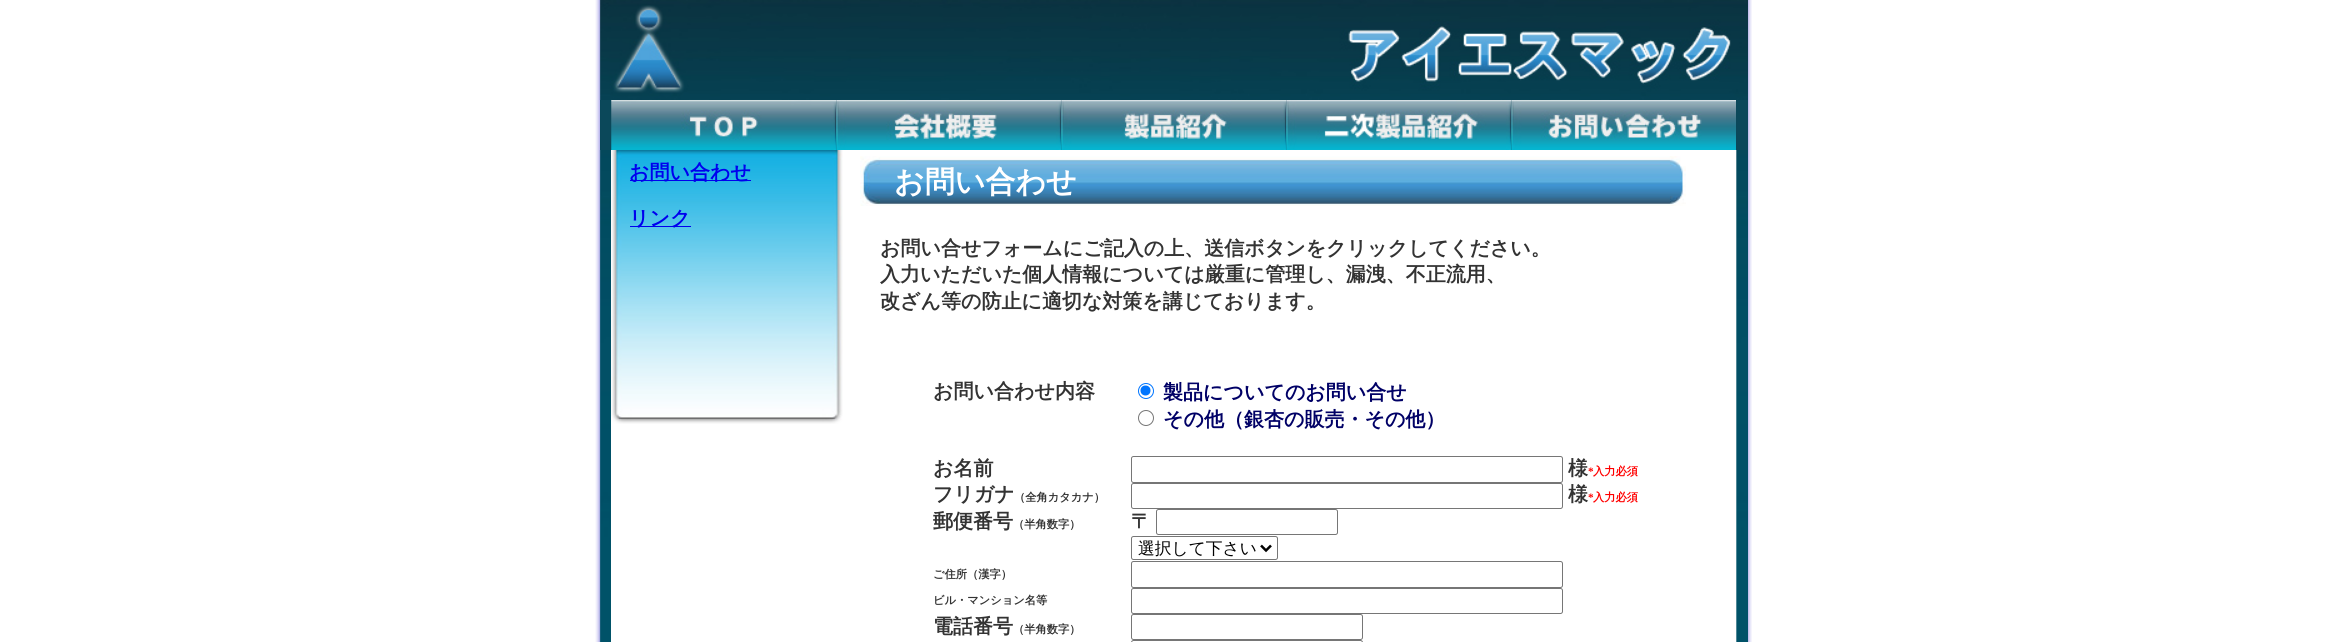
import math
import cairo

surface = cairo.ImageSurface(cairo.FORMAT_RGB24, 2346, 642)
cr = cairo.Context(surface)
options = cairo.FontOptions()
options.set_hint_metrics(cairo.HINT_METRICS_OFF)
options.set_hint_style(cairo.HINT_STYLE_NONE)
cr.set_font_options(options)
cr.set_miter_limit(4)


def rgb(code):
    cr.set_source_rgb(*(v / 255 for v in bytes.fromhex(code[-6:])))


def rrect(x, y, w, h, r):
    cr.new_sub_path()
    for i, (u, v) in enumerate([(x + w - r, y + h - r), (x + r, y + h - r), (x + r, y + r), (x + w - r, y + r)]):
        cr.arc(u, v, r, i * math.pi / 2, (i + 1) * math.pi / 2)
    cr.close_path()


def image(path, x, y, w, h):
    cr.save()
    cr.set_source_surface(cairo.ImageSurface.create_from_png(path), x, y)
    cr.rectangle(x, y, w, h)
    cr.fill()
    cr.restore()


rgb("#ffffff")
cr.paint()
image("img/1.png", 595, 0, 1157, 642)
image("img/2.png", 599, 0, 1149, 100)
rgb("#0b485a")
cr.rectangle(600, 100, 1148, 50)
cr.fill()
image("img/3.png", 611, 100, 226, 50)
image("img/4.png", 836, 100, 226, 50)
image("img/5.png", 1061, 100, 226, 50)
image("img/6.png", 1286, 100, 226, 50)
image("img/7.png", 1511, 100, 225, 50)
image("img/8.png", 599, 150, 12, 492)
image("img/9.png", 611, 150, 232, 274)
rgb("#0000ee")
cr.rectangle(630, 180, 121, 1)
cr.fill()
cr.rectangle(630, 226, 61, 1)
cr.fill()
image("img/10.png", 860, 156, 826, 50)
cr.arc(1146, 391, 7.5, 0, 2 * math.pi)
rgb("#0075ff")
cr.set_line_width(1)
cr.stroke()
cr.arc(1145.5, 390.5, 5, 0, 2 * math.pi)
cr.fill()
cr.arc(1146, 418, 7.5, 0, 2 * math.pi)
rgb("#767676")
cr.stroke()
rrect(1131.5, 456.5, 431, 26, 2)
cr.stroke()
rrect(1131.5, 483.5, 431, 25, 2)
cr.stroke()
rrect(1156.5, 509.5, 181, 25, 2)
cr.stroke()
rrect(1131.5, 536.5, 146, 23, 2)
cr.stroke()
cr.new_path()
cr.move_to(1261, 545.5)
cr.line_to(1266, 550.5)
cr.line_to(1271, 545.5)
rgb("#000000")
cr.set_line_width(2.5)
cr.stroke()
rrect(1131.5, 561.5, 431, 26, 2)
rgb("#767676")
cr.set_line_width(1)
cr.stroke()
rrect(1131.5, 588.5, 431, 25, 2)
cr.stroke()
rrect(1131.5, 614.5, 231, 25, 2)
cr.stroke()
rrect(1131.5, 640.5, 231, 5, 2)
cr.stroke()
image("img/11.png", 1736, 150, 12, 492)
cr.select_font_face("WenQuanYi Zen Hei", cairo.FONT_SLANT_NORMAL, cairo.FONT_WEIGHT_BOLD)
cr.set_font_size(20)
rgb("#0000ee")
cr.move_to(629, 179)
cr.show_text("お問い合わせ")
cr.move_to(629, 225)
cr.show_text("リンク")
cr.set_font_size(30)
rgb("#ffffff")
cr.move_to(894, 192)
cr.show_text("お問い合わせ")
cr.set_font_size(20)
rgb("#333333")
for x, y, s in [
    (880, 255, "お問い合せフォームにご記入の上、送信ボタンをクリックしてください。"),
    (880, 281, "入力いただいた個人情報については厳重に管理し、漏洩、不正流用、"),
    (880, 308, "改ざん等の防止に適切な対策を講じております。"),
    (933, 398, "お問い合わせ内容"),
]:
    cr.move_to(x, y)
    cr.show_text(s)
rgb("#000066")
cr.move_to(1163, 399)
cr.show_text("製品についてのお問い合せ")
cr.move_to(1163, 426)
cr.show_text("その他（銀杏の販売・その他）")
rgb("#333333")
cr.move_to(933, 475)
cr.show_text("お名前")
cr.move_to(1568, 475)
cr.show_text("様")
cr.select_font_face("Liberation Serif", cairo.FONT_SLANT_NORMAL, cairo.FONT_WEIGHT_BOLD)
cr.set_font_size(11.25)
rgb("#ff0000")
cr.move_to(1588, 475)
cr.show_text("*")
cr.select_font_face("WenQuanYi Zen Hei", cairo.FONT_SLANT_NORMAL, cairo.FONT_WEIGHT_BOLD)
cr.move_to(1593, 475)
cr.show_text("入力必須")
cr.set_font_size(20)
rgb("#333333")
cr.move_to(933, 501)
cr.show_text("フリガナ")
cr.set_font_size(11.25)
cr.move_to(1014, 501)
cr.show_text("（全角カタカナ）")
cr.set_font_size(20)
cr.move_to(1568, 501)
cr.show_text("様")
cr.select_font_face("Liberation Serif", cairo.FONT_SLANT_NORMAL, cairo.FONT_WEIGHT_BOLD)
cr.set_font_size(11.25)
rgb("#ff0000")
cr.move_to(1588, 501)
cr.show_text("*")
cr.select_font_face("WenQuanYi Zen Hei", cairo.FONT_SLANT_NORMAL, cairo.FONT_WEIGHT_BOLD)
cr.move_to(1593, 501)
cr.show_text("入力必須")
cr.set_font_size(20)
rgb("#333333")
cr.move_to(933, 528)
cr.show_text("郵便番号")
cr.set_font_size(11.25)
cr.move_to(1013, 528)
cr.show_text("（半角数字）")
cr.set_font_size(20)
cr.move_to(1131, 528)
cr.show_text("〒")
cr.select_font_face("WenQuanYi Zen Hei Medium")
cr.set_font_size(16.75)
rgb("#000000")
cr.move_to(1138, 554)
cr.show_text("選択して下さい")
cr.select_font_face("WenQuanYi Zen Hei", cairo.FONT_SLANT_NORMAL, cairo.FONT_WEIGHT_BOLD)
cr.set_font_size(11.25)
rgb("#333333")
cr.move_to(933, 578)
cr.show_text("ご住所（漢字）")
cr.move_to(933, 604)
cr.show_text("ビル・マンション名等")
cr.set_font_size(20)
cr.move_to(933, 633)
cr.show_text("電話番号")
cr.set_font_size(11.25)
cr.move_to(1013, 633)
cr.show_text("（半角数字）")
surface.write_to_png("page.png")
